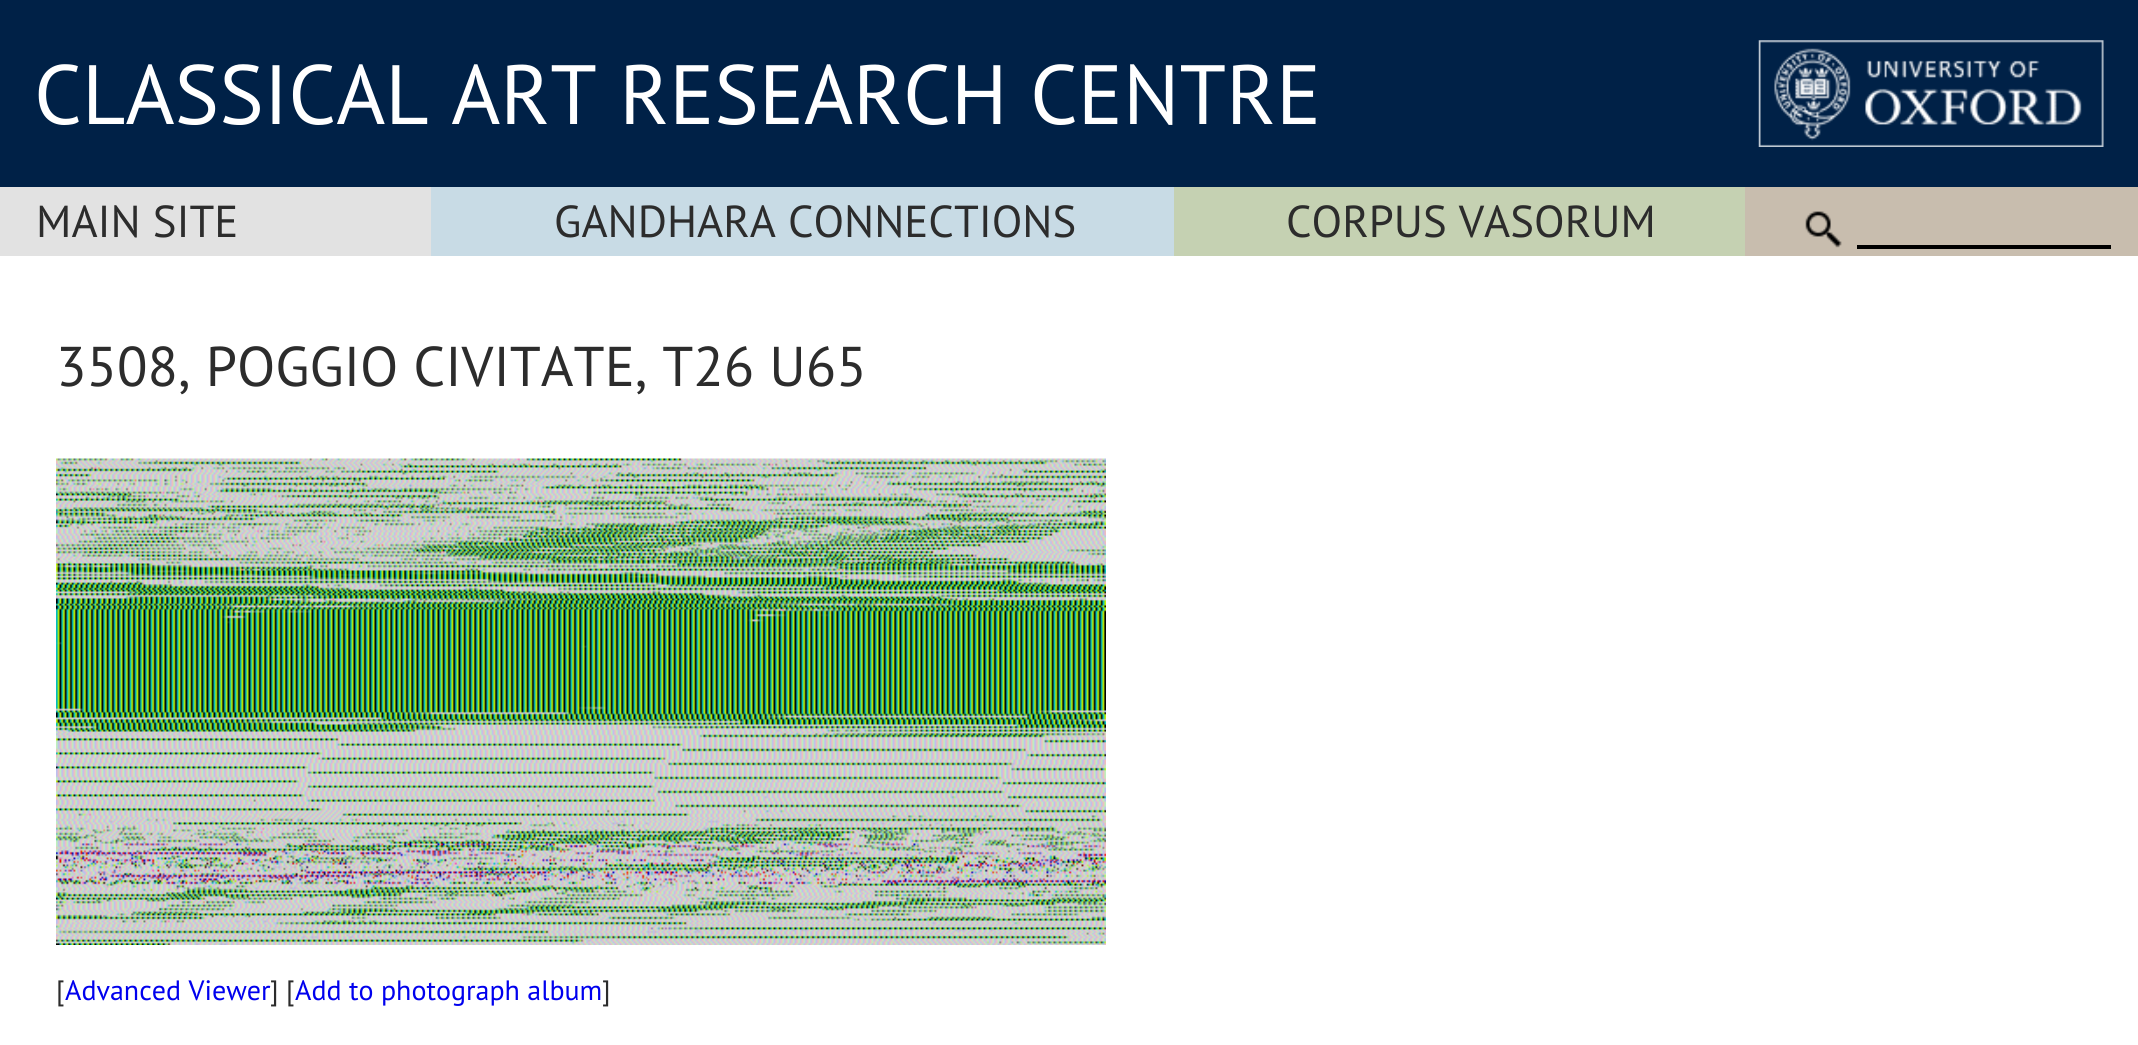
import math
import cairo

surface = cairo.ImageSurface(cairo.FORMAT_RGB24, 2138, 1045)
cr = cairo.Context(surface)
options = cairo.FontOptions()
options.set_hint_metrics(cairo.HINT_METRICS_OFF)
options.set_hint_style(cairo.HINT_STYLE_NONE)
cr.set_font_options(options)
cr.set_miter_limit(4)


def rgb(code):
    cr.set_source_rgb(*(v / 255 for v in bytes.fromhex(code[-6:])))


def image(path, x, y, w, h):
    cr.save()
    cr.set_source_surface(cairo.ImageSurface.create_from_png(path), x, y)
    cr.rectangle(x, y, w, h)
    cr.fill()
    cr.restore()


rgb("#ffffff")
cr.paint()
rgb("#002147")
cr.rectangle(0, 0, 2138, 187)
cr.fill()
image("img/1.png", 1758, 40, 346, 107)
for x, y, w, h, color in [
    (0, 187, 431, 69, "#e2e2e2"),
    (431, 187, 743, 69, "#c8dbe5"),
    (1174, 187, 571, 69, "#c5d1b2"),
    (1745, 187, 393, 69, "#c8bdae"),
]:
    rgb(color)
    cr.rectangle(x, y, w, h)
    cr.fill()
image("img/2.png", 1805, 211, 37, 37)
rgb("#000000")
cr.rectangle(1857, 245, 254, 4)
cr.fill()
image("img/3.png", 56, 458, 1050, 487)
cr.select_font_face("PT Sans")
cr.set_font_size(84)
rgb("#ffffff")
cr.move_to(34, 124)
cr.show_text("CLASSICAL ART RESEARCH CENTRE")
cr.set_font_size(44.75)
rgb("#2c2c2c")
for x, y, s in [
    (36, 237, "MAIN SITE"),
    (554, 237, "GANDHARA CONNECTIONS"),
    (1286, 237, "CORPUS VASORUM"),
]:
    cr.move_to(x, y)
    cr.show_text(s)
cr.set_font_size(56)
cr.move_to(56, 386)
cr.show_text("3508, POGGIO CIVITATE, T26 U65")
cr.set_font_size(28)
cr.move_to(56, 1000)
cr.show_text("[")
rgb("#0000ee")
cr.move_to(65, 1000)
cr.show_text("Advanced Viewer")
rgb("#2c2c2c")
cr.move_to(270, 1000)
cr.show_text("] [")
rgb("#0000ee")
cr.move_to(295, 1000)
cr.show_text("Add to photograph album")
rgb("#2c2c2c")
cr.move_to(602, 1000)
cr.show_text("]")
surface.write_to_png("page.png")
